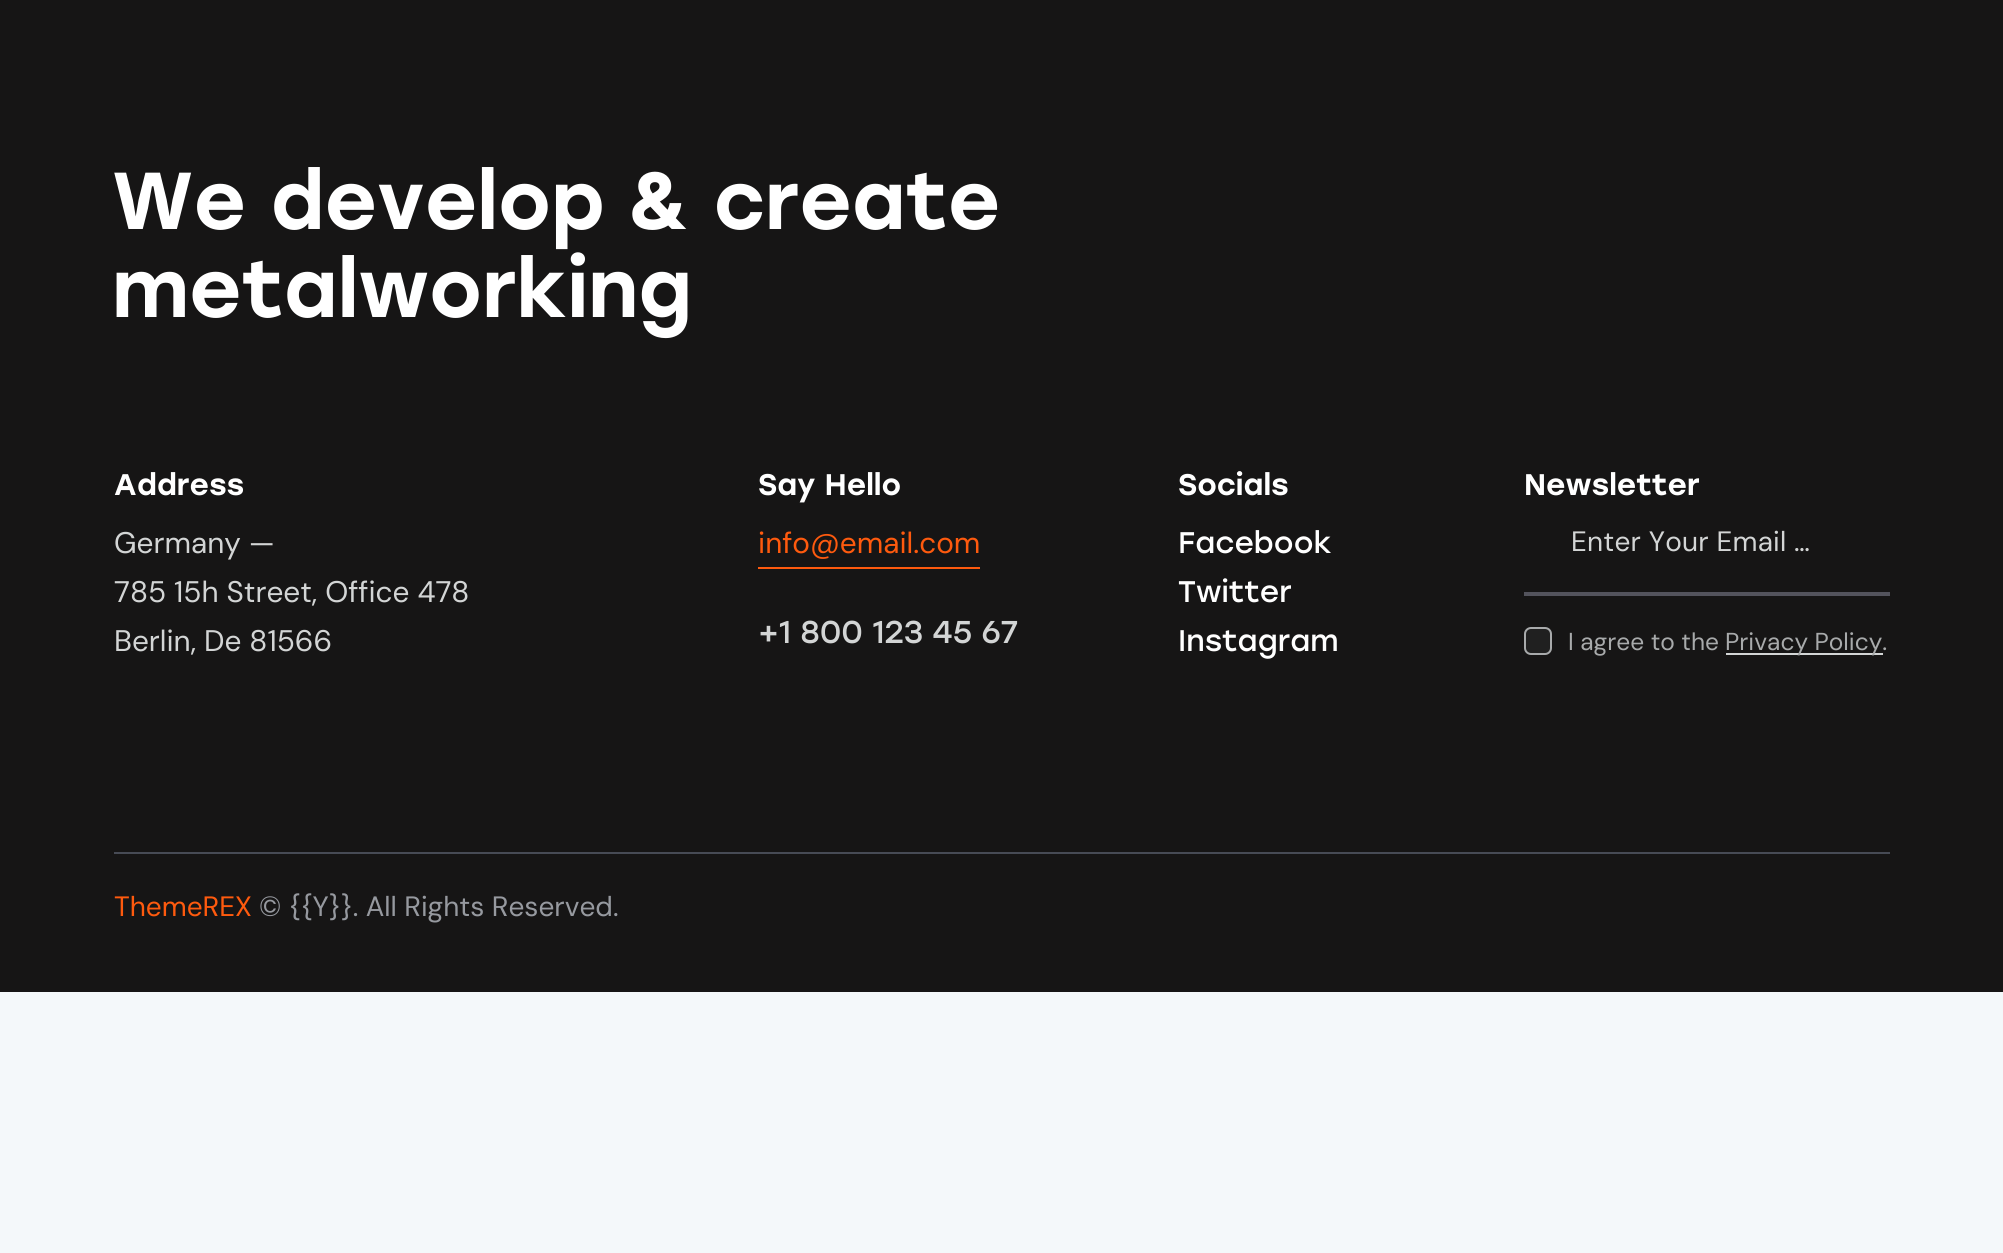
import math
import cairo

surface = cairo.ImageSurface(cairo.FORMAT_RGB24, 2003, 1253)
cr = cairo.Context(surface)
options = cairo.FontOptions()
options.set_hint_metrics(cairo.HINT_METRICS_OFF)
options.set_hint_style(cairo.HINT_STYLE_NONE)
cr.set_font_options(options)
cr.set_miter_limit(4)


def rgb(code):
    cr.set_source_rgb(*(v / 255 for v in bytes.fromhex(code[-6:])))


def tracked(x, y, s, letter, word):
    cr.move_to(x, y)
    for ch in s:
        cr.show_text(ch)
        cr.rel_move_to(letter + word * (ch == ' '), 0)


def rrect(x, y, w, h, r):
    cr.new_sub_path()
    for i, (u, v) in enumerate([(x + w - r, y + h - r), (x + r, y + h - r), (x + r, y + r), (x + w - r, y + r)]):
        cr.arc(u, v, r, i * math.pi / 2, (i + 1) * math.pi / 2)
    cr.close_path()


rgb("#f4f8fa")
cr.paint()
for x, y, w, h, color in [
    (0, 0, 2003, 992, "#161515"),
    (758, 567, 222, 2, "#fe5a0e"),
    (1524, 592, 366, 4, "#53535c"),
]:
    rgb(color)
    cr.rectangle(x, y, w, h)
    cr.fill()
rgb("#202020")
rrect(1525, 628, 26, 26, 6)
cr.fill_preserve()
rgb("#a8aaab")
cr.stroke()
rgb("#d3d5d5")
cr.rectangle(1726, 653, 157, 2)
cr.fill()
rgb("#474b55")
cr.rectangle(114, 852, 1776, 2)
cr.fill()
cr.select_font_face("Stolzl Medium")
cr.set_font_size(80.5)
rgb("#ffffff")
cr.move_to(112, 229)
cr.show_text("We develop & create")
cr.move_to(112, 317)
cr.show_text("metalworking")
cr.set_font_size(29.75)
cr.move_to(114, 495)
cr.show_text("Address")
cr.select_font_face("DM Sans")
rgb("#d3d5d5")
for x, y, s in [
    (114, 553, "Germany —"),
    (114, 602, "785 15h Street, Office 478"),
    (114, 651, "Berlin, De 81566"),
]:
    cr.move_to(x, y)
    cr.show_text(s)
cr.select_font_face("Stolzl Medium")
rgb("#ffffff")
cr.move_to(758, 495)
cr.show_text("Say Hello")
cr.select_font_face("DM Sans")
rgb("#fe5a0e")
cr.move_to(758, 553)
cr.show_text("info@email.com")
cr.select_font_face("Stolzl")
cr.set_font_size(31.5)
rgb("#d3d5d5")
cr.move_to(758, 643)
cr.show_text("+1 800 123 45 67")
cr.select_font_face("Stolzl Medium")
cr.set_font_size(29.75)
rgb("#ffffff")
cr.move_to(1178, 495)
cr.show_text("Socials")
cr.select_font_face("Stolzl")
for x, y, s in [
    (1178, 553, "Facebook"),
    (1178, 602, "Twitter"),
    (1178, 651, "Instagram"),
]:
    cr.move_to(x, y)
    cr.show_text(s)
cr.select_font_face("Stolzl Medium")
cr.move_to(1524, 495)
cr.show_text("Newsletter")
cr.select_font_face("DM Sans")
cr.set_font_size(28)
rgb("#d3d5d5")
tracked(1571, 551, "Enter Your Email …", 0.2, 0)
cr.set_font_size(24.5)
rgb("#a8aaab")
cr.move_to(1568, 650)
cr.show_text("I agree to the")
cr.move_to(1725, 650)
cr.show_text("Privacy Policy.")
cr.set_font_size(28)
rgb("#fe5a0e")
cr.move_to(114, 916)
cr.show_text("ThemeREX")
rgb("#96999f")
cr.move_to(259, 916)
cr.show_text("© {{Y}}. All Rights Reserved.")
surface.write_to_png("page.png")
